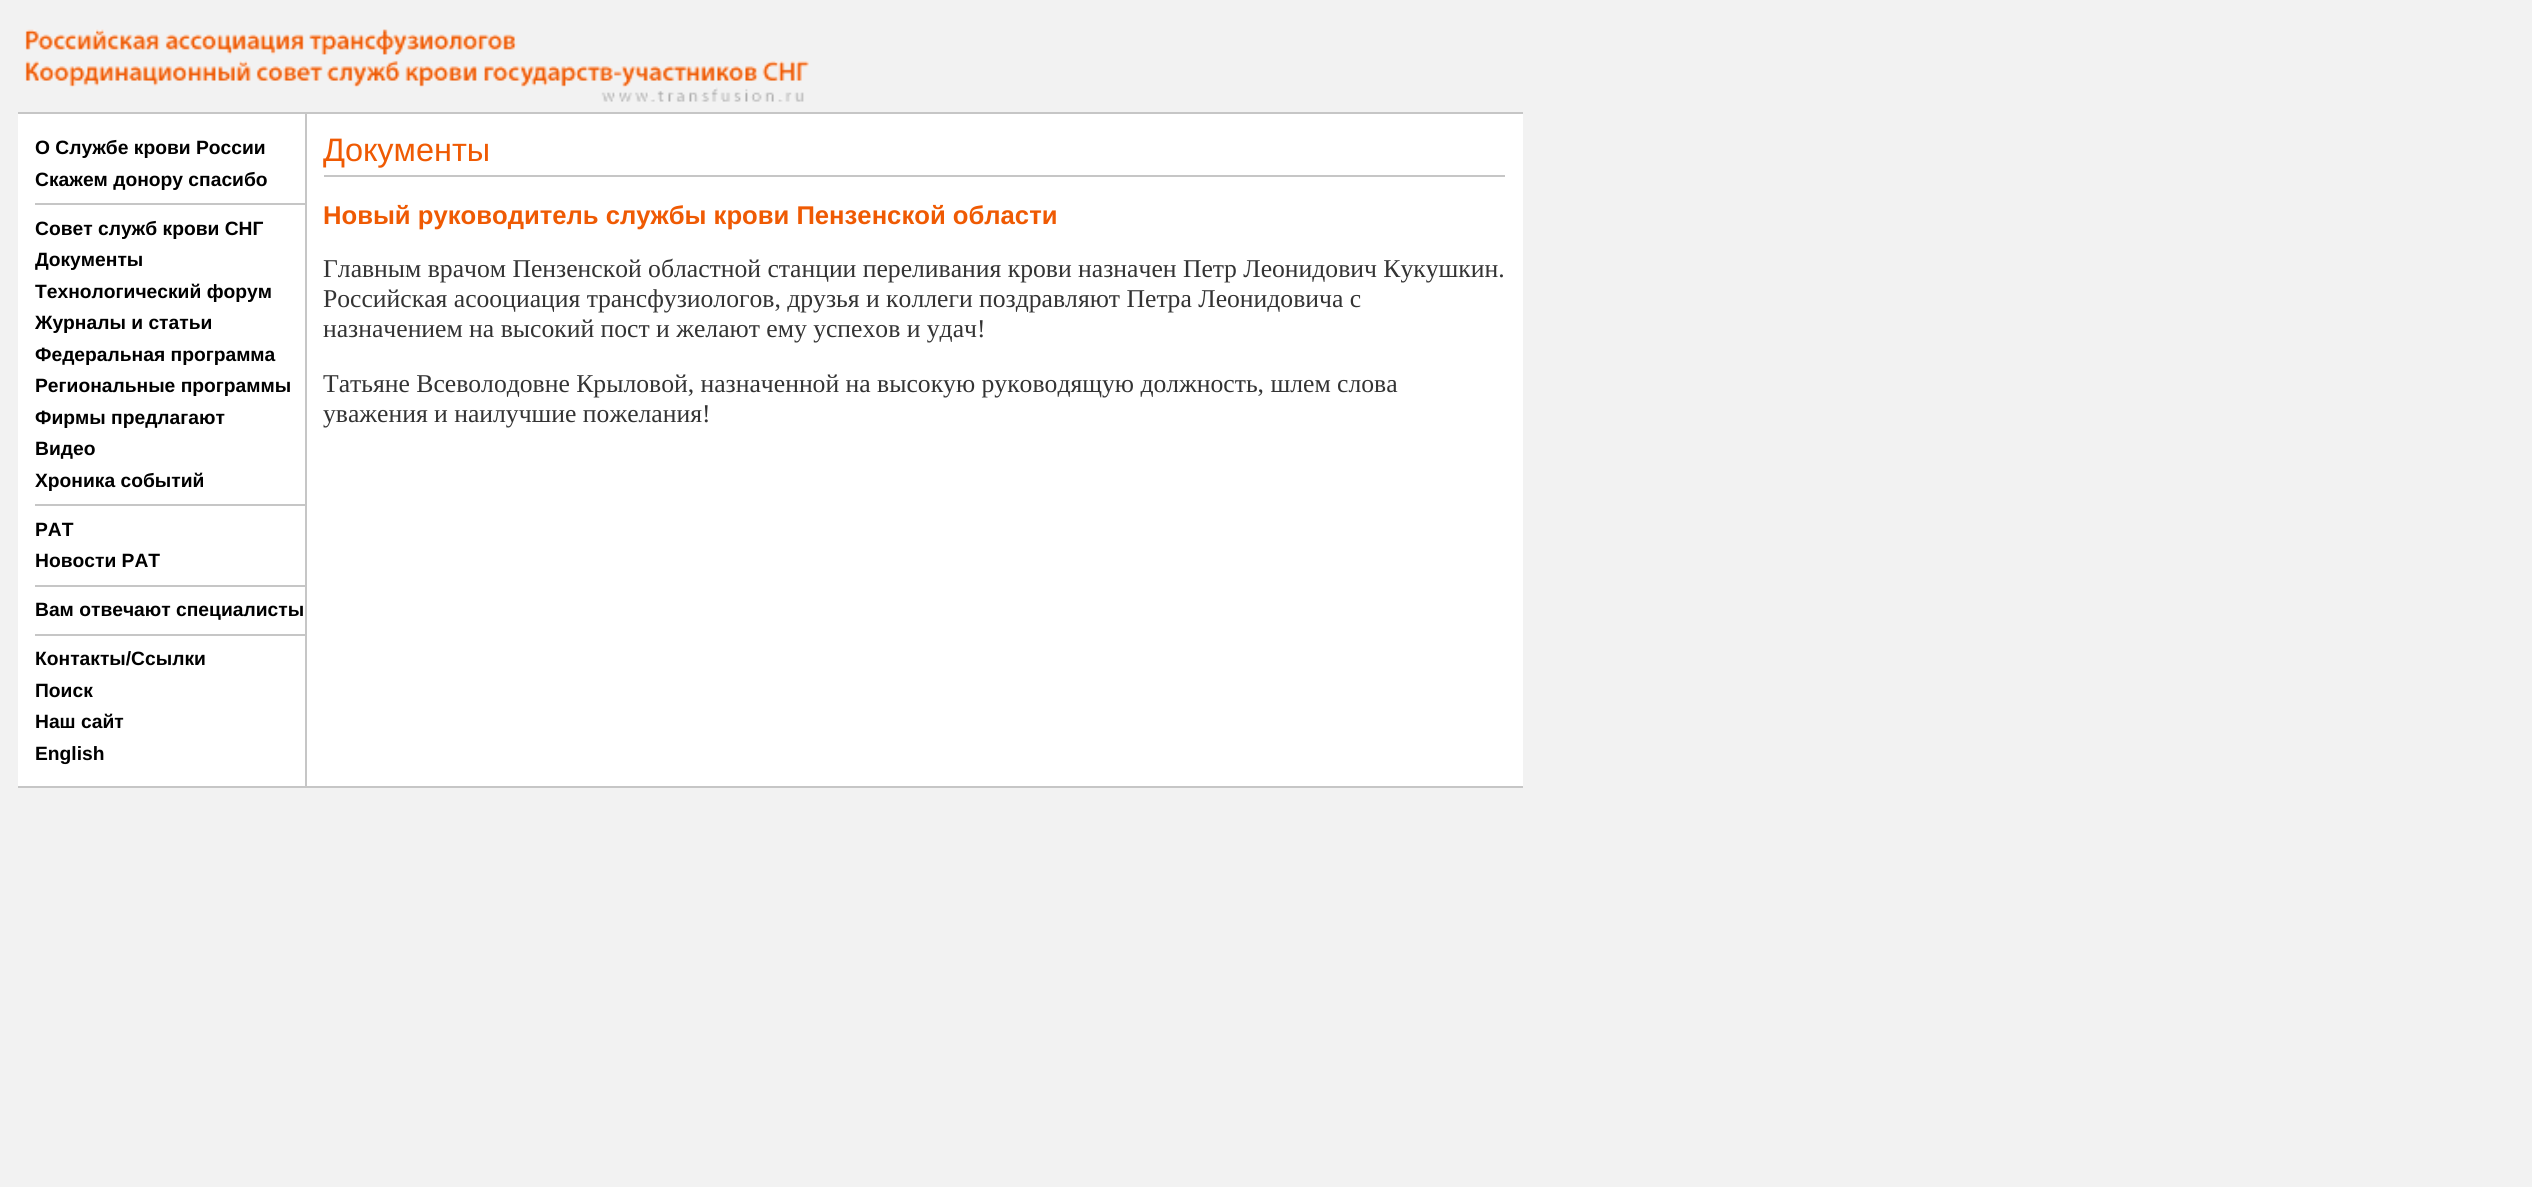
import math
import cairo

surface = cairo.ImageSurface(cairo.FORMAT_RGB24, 2532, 1187)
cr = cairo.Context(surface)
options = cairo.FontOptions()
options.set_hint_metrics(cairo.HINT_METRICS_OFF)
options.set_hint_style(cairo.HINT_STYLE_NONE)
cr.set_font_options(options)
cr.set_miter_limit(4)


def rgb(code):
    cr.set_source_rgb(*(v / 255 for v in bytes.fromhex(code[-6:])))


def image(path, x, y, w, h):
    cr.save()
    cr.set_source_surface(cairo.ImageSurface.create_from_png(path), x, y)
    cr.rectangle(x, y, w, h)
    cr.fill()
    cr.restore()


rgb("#f2f2f2")
cr.paint()
rgb("#ffffff")
cr.rectangle(18, 114, 1505, 672)
cr.fill()
image("img/1.png", 25, 29, 784, 73)
for x, y, w, h, color in [
    (18, 112, 1505, 2, "#c6c6c6"),
    (305, 114, 2, 672, "#c6c6c6"),
    (35, 203, 270, 2, "#c6c6c6"),
    (35, 504, 270, 2, "#c6c6c6"),
    (35, 585, 270, 2, "#c6c6c6"),
    (35, 634, 270, 2, "#c6c6c6"),
    (324, 175, 1181, 2, "#c6c6c6"),
    (18, 786, 1505, 2, "#c6c6c6"),
]:
    rgb(color)
    cr.rectangle(x, y, w, h)
    cr.fill()
cr.select_font_face("Liberation Sans", cairo.FONT_SLANT_NORMAL, cairo.FONT_WEIGHT_BOLD)
cr.set_font_size(19.25)
rgb("#000000")
for x, y, s in [
    (35, 154, "О Службе крови России"),
    (35, 186, "Скажем донору спасибо"),
    (35, 235, "Совет служб крови СНГ"),
    (35, 266, "Документы"),
    (35, 298, "Технологический форум"),
    (35, 329, "Журналы и статьи"),
    (35, 361, "Федеральная программа"),
    (35, 392, "Региональные программы"),
    (35, 424, "Фирмы предлагают"),
    (35, 455, "Видео"),
    (35, 487, "Хроника событий"),
    (35, 536, "РАТ"),
    (35, 567, "Новости РАТ"),
    (35, 616, "Вам отвечают специалисты"),
    (35, 665, "Контакты/Ссылки"),
    (35, 697, "Поиск"),
    (35, 728, "Наш сайт"),
    (35, 760, "English"),
]:
    cr.move_to(x, y)
    cr.show_text(s)
cr.select_font_face("Liberation Sans")
cr.set_font_size(32.5)
rgb("#ef5a03")
cr.move_to(323, 161)
cr.show_text("Документы")
cr.select_font_face("Liberation Sans", cairo.FONT_SLANT_NORMAL, cairo.FONT_WEIGHT_BOLD)
cr.set_font_size(25.65)
cr.move_to(323, 224)
cr.show_text("Новый руководитель службы крови Пензенской области")
cr.select_font_face("Liberation Serif")
rgb("#333333")
for x, y, s in [
    (323, 277, "Главным врачом Пензенской областной станции переливания крови назначен Петр Леонидович Кукушкин."),
    (323, 307, "Российская асооциация трансфузиологов, друзья и коллеги поздравляют Петра Леонидовича с"),
    (323, 337, "назначением на высокий пост и желают ему успехов и удач!"),
    (323, 392, "Татьяне Всеволодовне Крыловой, назначенной на высокую руководящую должность, шлем слова"),
    (323, 422, "уважения и наилучшие пожелания!"),
]:
    cr.move_to(x, y)
    cr.show_text(s)
surface.write_to_png("page.png")
